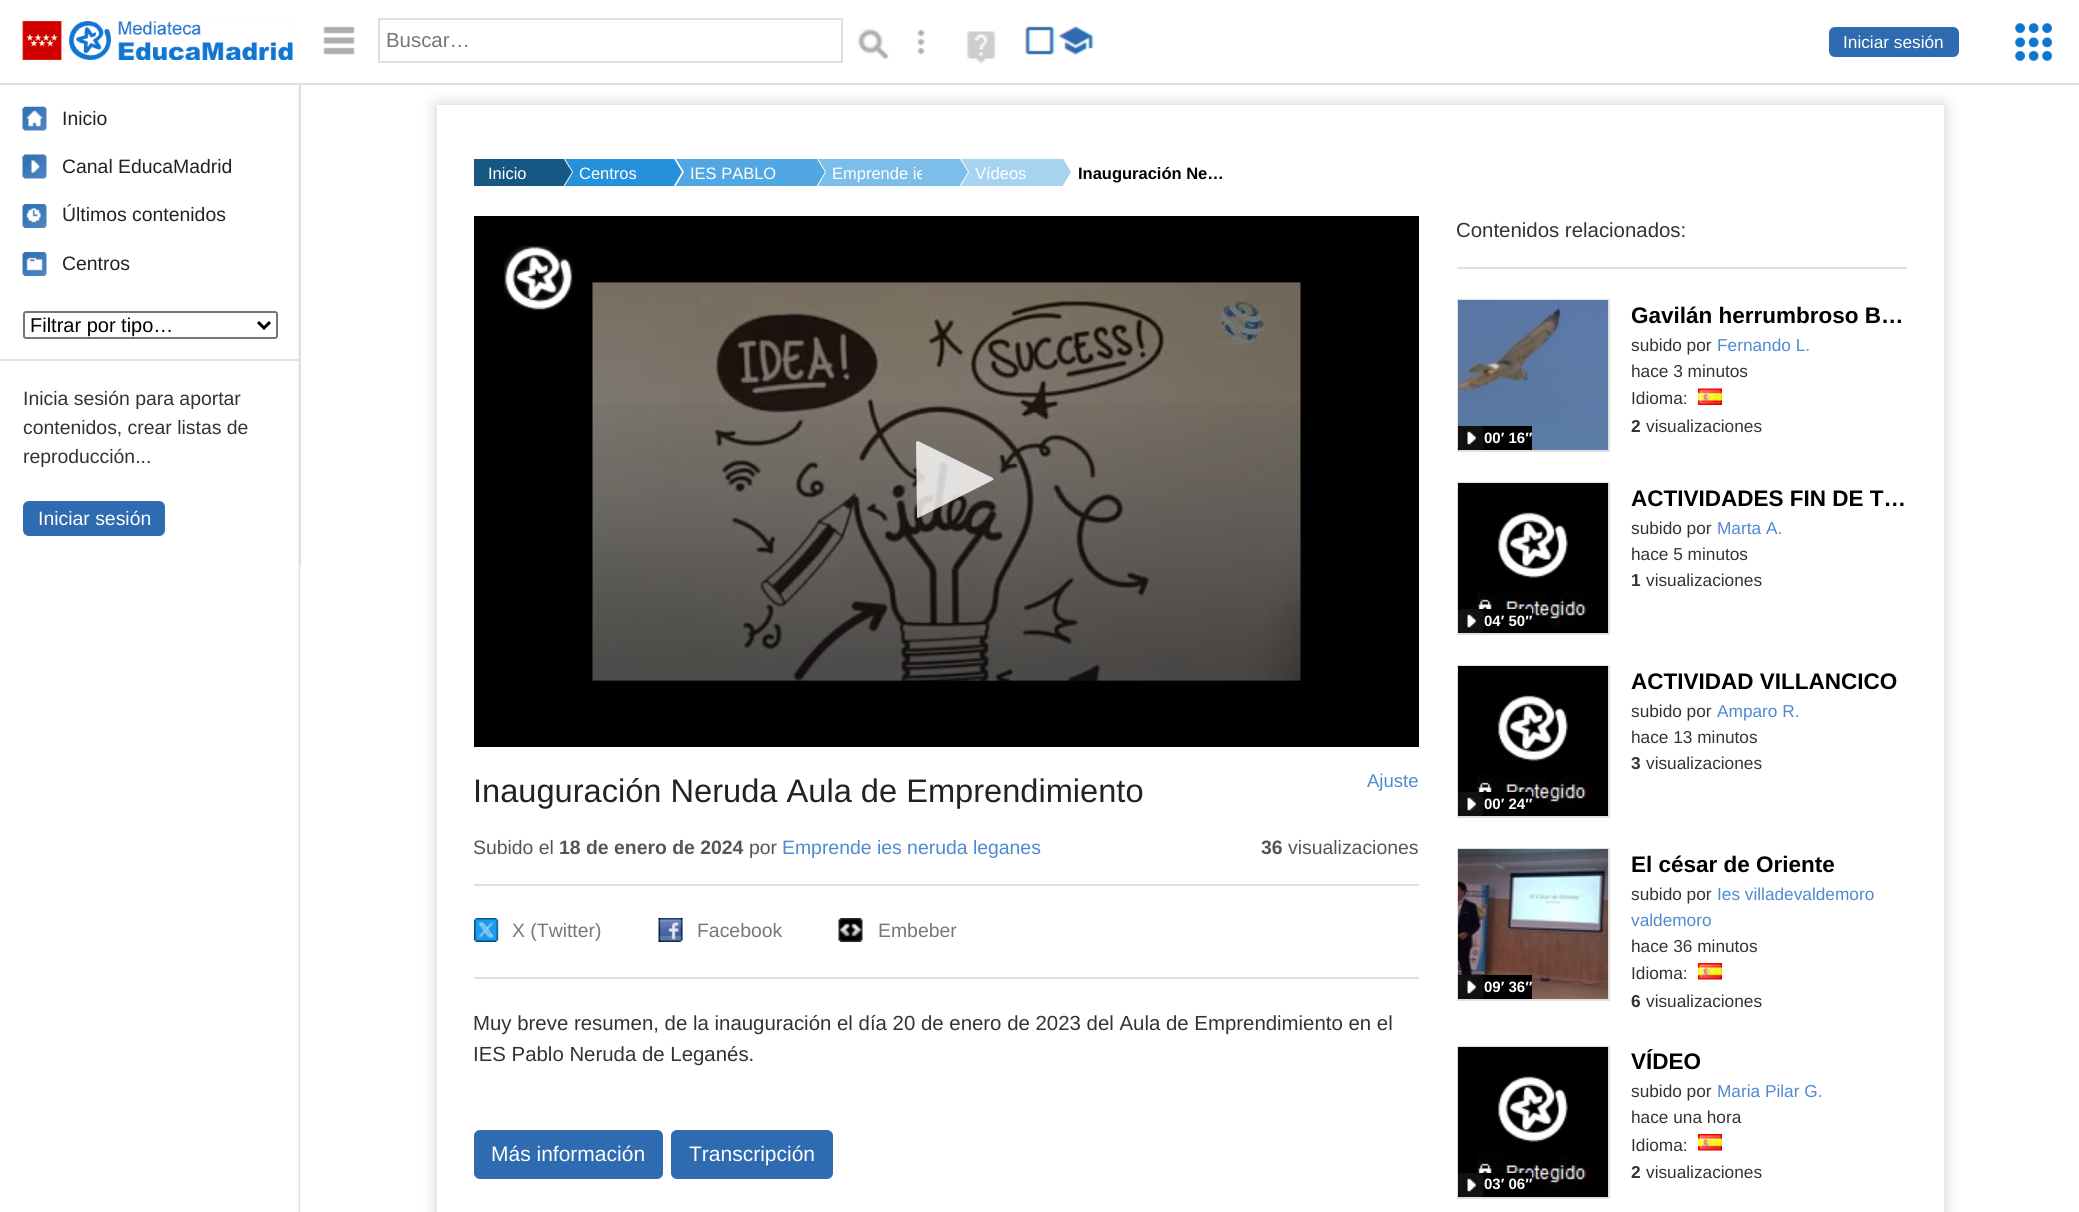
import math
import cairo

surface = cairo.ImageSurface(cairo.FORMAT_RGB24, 2079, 1212)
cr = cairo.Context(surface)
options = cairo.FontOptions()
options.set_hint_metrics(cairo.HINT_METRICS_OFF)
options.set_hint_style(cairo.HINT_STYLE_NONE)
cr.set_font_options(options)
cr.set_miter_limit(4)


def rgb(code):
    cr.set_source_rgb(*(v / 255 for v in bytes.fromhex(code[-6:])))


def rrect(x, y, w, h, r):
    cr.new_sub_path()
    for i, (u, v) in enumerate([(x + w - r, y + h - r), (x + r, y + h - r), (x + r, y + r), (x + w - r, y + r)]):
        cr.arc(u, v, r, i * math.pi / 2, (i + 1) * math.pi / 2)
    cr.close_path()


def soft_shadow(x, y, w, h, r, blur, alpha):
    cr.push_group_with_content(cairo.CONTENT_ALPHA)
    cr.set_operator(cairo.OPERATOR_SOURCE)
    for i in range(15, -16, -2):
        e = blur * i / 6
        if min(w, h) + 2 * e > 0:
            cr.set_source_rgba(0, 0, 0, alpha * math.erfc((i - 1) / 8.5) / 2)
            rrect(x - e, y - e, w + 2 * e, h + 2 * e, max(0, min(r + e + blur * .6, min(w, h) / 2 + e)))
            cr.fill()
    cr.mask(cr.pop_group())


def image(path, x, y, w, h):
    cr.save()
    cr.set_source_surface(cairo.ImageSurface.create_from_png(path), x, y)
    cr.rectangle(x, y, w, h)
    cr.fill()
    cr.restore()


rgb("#ffffff")
cr.paint()
image("img/1.png", 298, 85, 2, 1127)
rgb("#e0e0e0")
cr.rectangle(299, 84, 2, 482)
cr.fill()
cr.save()
cr.set_fill_rule(cairo.FILL_RULE_EVEN_ODD)
cr.new_path()
cr.move_to(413, 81)
cr.line_to(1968, 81)
cr.line_to(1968, 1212)
cr.line_to(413, 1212)
cr.close_path()
cr.move_to(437, 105)
cr.line_to(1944, 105)
cr.line_to(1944, 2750)
cr.line_to(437, 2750)
cr.close_path()
cr.clip()
rgb("#000000")
soft_shadow(437, 105, 1507, 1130, 0, 7.5, 0.2)
cr.restore()
cr.rectangle(0, 83, 2079, 2)
cr.fill()
image("img/2.png", 22, 21, 271, 39)
image("img/3.png", 323, 26, 32, 29)
cr.rectangle(379, 19, 463, 43)
cr.stroke()
image("img/4.png", 857, 28, 32, 31)
image("img/5.png", 917, 29, 8, 26)
image("img/6.png", 965, 31, 32, 33)
image("img/7.png", 1024, 26, 71, 29)
rgb("#2f6bb0")
rrect(1829, 27, 130, 30, 6)
cr.fill()
image("img/8.png", 22, 106, 25, 25)
image("img/9.png", 22, 154, 25, 25)
image("img/10.png", 22, 204, 25, 24)
image("img/11.png", 22, 252, 25, 24)
rrect(24, 312, 253, 26, 2)
rgb("#767676")
cr.stroke()
cr.new_path()
cr.move_to(258, 322)
cr.line_to(264, 328)
cr.line_to(270, 322)
rgb("#000000")
cr.set_line_width(3)
cr.stroke()
rgb("#e0e0e0")
cr.rectangle(0, 359, 299, 2)
cr.fill()
rgb("#2f6bb0")
rrect(23, 501, 142, 35, 6)
cr.fill()
rgb("#165783")
cr.rectangle(474, 159, 52, 27)
cr.fill()
rgb("#2591da")
cr.rectangle(564, 159, 74, 27)
cr.fill()
cr.save()
cr.rectangle(414, 159, 1493, 27)
cr.clip()
rgb("#ffffff")
cr.new_path()
cr.move_to(528, 248)
cr.line_to(528, 98)
cr.line_to(573, 172)
cr.close_path()
cr.fill()
cr.restore()
rgb("#50a7e2")
cr.rectangle(675, 159, 105, 27)
cr.fill()
cr.save()
cr.rectangle(414, 159, 1493, 27)
cr.clip()
rgb("#ffffff")
cr.new_path()
cr.move_to(639, 248)
cr.line_to(639, 98)
cr.line_to(684, 172)
cr.close_path()
cr.fill()
rgb("#2591da")
cr.new_path()
cr.move_to(638, 248)
cr.line_to(638, 98)
cr.line_to(682, 172)
cr.close_path()
cr.fill()
cr.restore()
rgb("#7cbde9")
cr.rectangle(817, 159, 105, 27)
cr.fill()
cr.save()
cr.rectangle(414, 159, 1493, 27)
cr.clip()
rgb("#ffffff")
cr.new_path()
cr.move_to(782, 248)
cr.line_to(782, 98)
cr.line_to(826, 172)
cr.close_path()
cr.fill()
rgb("#50a7e2")
cr.new_path()
cr.move_to(780, 248)
cr.line_to(780, 98)
cr.line_to(825, 172)
cr.close_path()
cr.fill()
cr.restore()
rgb("#a8d3f0")
cr.rectangle(960, 159, 66, 27)
cr.fill()
cr.save()
cr.rectangle(414, 159, 1493, 27)
cr.clip()
rgb("#ffffff")
cr.new_path()
cr.move_to(924, 248)
cr.line_to(924, 98)
cr.line_to(969, 172)
cr.close_path()
cr.fill()
rgb("#a8d3f0")
cr.new_path()
cr.move_to(1026, 248)
cr.line_to(1026, 98)
cr.line_to(1071, 172)
cr.close_path()
cr.fill()
cr.restore()
rgb("#000000")
cr.rectangle(474, 216, 945, 531)
cr.fill()
image("img/12.png", 504, 246, 69, 65)
image("img/13.png", 592, 273, 709, 412)
gradient = cairo.LinearGradient(947, 387, 947, 747)
gradient.add_color_stop_rgba(0, 0, 0, 0, 0)
gradient.add_color_stop_rgba(0.77, 0, 0, 0, 0.4)
gradient.add_color_stop_rgba(1, 0, 0, 0, 0.4)
cr.set_source(gradient)
cr.rectangle(592, 402, 709, 283)
cr.fill()
cr.set_source_rgba(1, 1, 1, 0.8)
cr.new_path()
cr.move_to(918, 518)
cr.curve_to(918, 518, 917, 518, 917, 517)
cr.line_to(916, 442)
cr.line_to(918, 441)
cr.line_to(993, 478)
cr.curve_to(993, 479, 994, 479, 993, 480)
cr.close_path()
cr.fill()
rgb("#e0e0e0")
cr.rectangle(474, 884, 945, 2)
cr.fill()
cr.rectangle(474, 977, 945, 2)
cr.fill()
image("img/14.png", 474, 918, 25, 24)
image("img/15.png", 658, 918, 25, 24)
image("img/16.png", 838, 918, 25, 24)
rgb("#2f6bb0")
rrect(474, 1130, 189, 49, 6)
cr.fill()
rrect(671, 1130, 162, 49, 6)
cr.fill()
rgb("#e0e0e0")
cr.rectangle(1457, 267, 450, 2)
cr.fill()
cr.rectangle(1458, 300, 151, 151)
cr.set_line_width(2)
cr.stroke()
image("img/17.png", 1458, 300, 150, 150)
image("img/18.png", 1698, 388, 24, 17)
rgb("#000000")
cr.rectangle(1458, 426, 74, 24)
cr.fill()
image("img/19.png", 1458, 426, 26, 24)
cr.rectangle(1458, 483, 151, 151)
rgb("#e0e0e0")
cr.stroke()
image("img/20.png", 1458, 483, 150, 150)
rgb("#000000")
cr.rectangle(1476, 609, 56, 18)
cr.fill()
image("img/19.png", 1458, 609, 26, 24)
cr.rectangle(1458, 666, 151, 151)
rgb("#e0e0e0")
cr.stroke()
image("img/20.png", 1458, 666, 150, 150)
rgb("#000000")
cr.rectangle(1476, 792, 56, 18)
cr.fill()
image("img/19.png", 1458, 792, 26, 24)
cr.rectangle(1458, 849, 151, 151)
rgb("#e0e0e0")
cr.stroke()
image("img/21.png", 1458, 849, 150, 150)
image("img/22.png", 1698, 963, 24, 17)
rgb("#000000")
cr.rectangle(1458, 975, 74, 24)
cr.fill()
image("img/19.png", 1458, 975, 26, 24)
cr.rectangle(1458, 1047, 151, 151)
rgb("#e0e0e0")
cr.stroke()
image("img/20.png", 1458, 1047, 150, 150)
image("img/22.png", 1698, 1134, 24, 17)
rgb("#000000")
cr.rectangle(1476, 1173, 56, 18)
cr.fill()
image("img/19.png", 1458, 1173, 26, 24)
image("img/23.png", 2015, 23, 37, 38)
cr.select_font_face("Liberation Sans")
cr.set_font_size(20.4)
rgb("#777777")
cr.move_to(386, 47)
cr.show_text("Buscar…")
cr.set_font_size(17.25)
rgb("#ffffff")
cr.move_to(1843, 48)
cr.show_text("Iniciar sesión")
cr.set_font_size(19.4)
rgb("#222222")
for x, y, s in [
    (62, 125, "Inicio"),
    (62, 173, "Canal EducaMadrid"),
    (62, 221, "Últimos contenidos"),
    (62, 270, "Centros"),
]:
    cr.move_to(x, y)
    cr.show_text(s)
cr.set_font_size(20)
rgb("#000000")
cr.move_to(30, 332)
cr.show_text("Filtrar por tipo…")
cr.set_font_size(19.4)
rgb("#333333")
for x, y, s in [
    (23, 405, "Inicia sesión para aportar"),
    (23, 434, "contenidos, crear listas de"),
    (23, 463, "reproducción..."),
]:
    cr.move_to(x, y)
    cr.show_text(s)
rgb("#ffffff")
cr.move_to(38, 525)
cr.show_text("Iniciar sesión")
cr.set_font_size(16.5)
cr.move_to(488, 179)
cr.show_text("Inicio")
cr.save()
cr.rectangle(414, 159, 1493, 27)
cr.clip()
rgb("#165783")
cr.new_path()
cr.move_to(526, 248)
cr.line_to(526, 98)
cr.line_to(572, 172)
cr.close_path()
cr.fill()
cr.restore()
for x, y, s in [
    (579, 179, "Centros"),
    (690, 179, "IES PABLO"),
    (832, 179, "Emprende ie"),
]:
    cr.move_to(x, y)
    cr.show_text(s)
cr.save()
cr.rectangle(414, 159, 1493, 27)
cr.clip()
rgb("#7cbde9")
cr.new_path()
cr.move_to(922, 248)
cr.line_to(922, 98)
cr.line_to(968, 172)
cr.close_path()
cr.fill()
cr.restore()
cr.move_to(975, 179)
cr.show_text("Vídeos")
cr.select_font_face("Liberation Sans", cairo.FONT_SLANT_NORMAL, cairo.FONT_WEIGHT_BOLD)
rgb("#000000")
cr.move_to(1078, 179)
cr.show_text("Inauguración Ne…")
cr.select_font_face("Liberation Sans")
cr.set_font_size(32.6)
rgb("#222222")
cr.move_to(473, 802)
cr.show_text("Inauguración Neruda Aula de Emprendimiento")
cr.set_font_size(18.5)
rgb("#4e8ad0")
cr.move_to(1367, 787)
cr.show_text("Ajuste")
cr.set_font_size(19.4)
rgb("#555555")
cr.move_to(473, 854)
cr.show_text("Subido el")
cr.select_font_face("Liberation Sans", cairo.FONT_SLANT_NORMAL, cairo.FONT_WEIGHT_BOLD)
cr.move_to(559, 854)
cr.show_text("18 de enero de 2024")
cr.select_font_face("Liberation Sans")
cr.move_to(749, 854)
cr.show_text("por")
rgb("#4e8ad0")
cr.move_to(782, 854)
cr.show_text("Emprende ies neruda leganes")
cr.select_font_face("Liberation Sans", cairo.FONT_SLANT_NORMAL, cairo.FONT_WEIGHT_BOLD)
rgb("#555555")
cr.move_to(1261, 854)
cr.show_text("36")
cr.select_font_face("Liberation Sans")
cr.move_to(1288, 854)
cr.show_text("visualizaciones")
rgb("#777777")
for x, y, s in [
    (512, 937, "X (Twitter)"),
    (697, 937, "Facebook"),
    (878, 937, "Embeber"),
]:
    cr.move_to(x, y)
    cr.show_text(s)
cr.set_font_size(20.4)
rgb("#333333")
cr.move_to(473, 1030)
cr.show_text("Muy breve resumen, de la inauguración el día 20 de enero de 2023 del Aula de Emprendimiento en el")
cr.move_to(473, 1061)
cr.show_text("IES Pablo Neruda de Leganés.")
cr.set_font_size(21)
rgb("#ffffff")
cr.move_to(491, 1161)
cr.show_text("Más información")
cr.move_to(689, 1161)
cr.show_text("Transcripción")
cr.set_font_size(20.4)
rgb("#333333")
cr.move_to(1456, 237)
cr.show_text("Contenidos relacionados:")
cr.select_font_face("Liberation Sans", cairo.FONT_SLANT_NORMAL, cairo.FONT_WEIGHT_BOLD)
cr.set_font_size(22.5)
rgb("#000000")
cr.move_to(1631, 323)
cr.show_text("Gavilán herrumbroso B…")
cr.select_font_face("Liberation Sans")
cr.set_font_size(17.25)
rgb("#333333")
cr.move_to(1631, 351)
cr.show_text("subido por")
rgb("#4e8ad0")
cr.move_to(1717, 351)
cr.show_text("Fernando L.")
rgb("#333333")
cr.move_to(1631, 377)
cr.show_text("hace 3 minutos")
cr.move_to(1631, 404)
cr.show_text("Idioma:")
cr.select_font_face("Liberation Sans", cairo.FONT_SLANT_NORMAL, cairo.FONT_WEIGHT_BOLD)
cr.move_to(1631, 432)
cr.show_text("2")
cr.select_font_face("Liberation Sans")
cr.move_to(1646, 432)
cr.show_text("visualizaciones")
cr.select_font_face("Liberation Sans", cairo.FONT_SLANT_NORMAL, cairo.FONT_WEIGHT_BOLD)
cr.set_font_size(15)
rgb("#ffffff")
cr.move_to(1484, 443)
cr.show_text("00′ 16″")
cr.set_font_size(22.5)
rgb("#000000")
cr.move_to(1631, 506)
cr.show_text("ACTIVIDADES FIN DE T…")
cr.select_font_face("Liberation Sans")
cr.set_font_size(17.25)
rgb("#333333")
cr.move_to(1631, 534)
cr.show_text("subido por")
rgb("#4e8ad0")
cr.move_to(1717, 534)
cr.show_text("Marta A.")
rgb("#333333")
cr.move_to(1631, 560)
cr.show_text("hace 5 minutos")
cr.select_font_face("Liberation Sans", cairo.FONT_SLANT_NORMAL, cairo.FONT_WEIGHT_BOLD)
cr.move_to(1631, 586)
cr.show_text("1")
cr.select_font_face("Liberation Sans")
cr.move_to(1646, 586)
cr.show_text("visualizaciones")
cr.select_font_face("Liberation Sans", cairo.FONT_SLANT_NORMAL, cairo.FONT_WEIGHT_BOLD)
cr.set_font_size(15)
rgb("#ffffff")
cr.move_to(1484, 626)
cr.show_text("04′ 50″")
cr.set_font_size(22.5)
rgb("#000000")
cr.move_to(1631, 689)
cr.show_text("ACTIVIDAD VILLANCICO")
cr.select_font_face("Liberation Sans")
cr.set_font_size(17.25)
rgb("#333333")
cr.move_to(1631, 717)
cr.show_text("subido por")
rgb("#4e8ad0")
cr.move_to(1717, 717)
cr.show_text("Amparo R.")
rgb("#333333")
cr.move_to(1631, 743)
cr.show_text("hace 13 minutos")
cr.select_font_face("Liberation Sans", cairo.FONT_SLANT_NORMAL, cairo.FONT_WEIGHT_BOLD)
cr.move_to(1631, 769)
cr.show_text("3")
cr.select_font_face("Liberation Sans")
cr.move_to(1646, 769)
cr.show_text("visualizaciones")
cr.select_font_face("Liberation Sans", cairo.FONT_SLANT_NORMAL, cairo.FONT_WEIGHT_BOLD)
cr.set_font_size(15)
rgb("#ffffff")
cr.move_to(1484, 809)
cr.show_text("00′ 24″")
cr.set_font_size(22.5)
rgb("#000000")
cr.move_to(1631, 872)
cr.show_text("El césar de Oriente")
cr.select_font_face("Liberation Sans")
cr.set_font_size(17.25)
rgb("#333333")
cr.move_to(1631, 900)
cr.show_text("subido por")
rgb("#4e8ad0")
cr.move_to(1717, 900)
cr.show_text("Ies villadevaldemoro")
cr.move_to(1631, 926)
cr.show_text("valdemoro")
rgb("#333333")
cr.move_to(1631, 952)
cr.show_text("hace 36 minutos")
cr.move_to(1631, 979)
cr.show_text("Idioma:")
cr.select_font_face("Liberation Sans", cairo.FONT_SLANT_NORMAL, cairo.FONT_WEIGHT_BOLD)
cr.set_font_size(15)
rgb("#ffffff")
cr.move_to(1484, 992)
cr.show_text("09′ 36″")
cr.set_font_size(17.25)
rgb("#333333")
cr.move_to(1631, 1007)
cr.show_text("6")
cr.select_font_face("Liberation Sans")
cr.move_to(1646, 1007)
cr.show_text("visualizaciones")
cr.select_font_face("Liberation Sans", cairo.FONT_SLANT_NORMAL, cairo.FONT_WEIGHT_BOLD)
cr.set_font_size(22.5)
rgb("#000000")
cr.move_to(1631, 1069)
cr.show_text("VÍDEO")
cr.select_font_face("Liberation Sans")
cr.set_font_size(17.25)
rgb("#333333")
cr.move_to(1631, 1097)
cr.show_text("subido por")
rgb("#4e8ad0")
cr.move_to(1717, 1097)
cr.show_text("Maria Pilar G.")
rgb("#333333")
cr.move_to(1631, 1123)
cr.show_text("hace una hora")
cr.move_to(1631, 1151)
cr.show_text("Idioma:")
cr.select_font_face("Liberation Sans", cairo.FONT_SLANT_NORMAL, cairo.FONT_WEIGHT_BOLD)
cr.move_to(1631, 1178)
cr.show_text("2")
cr.select_font_face("Liberation Sans")
cr.move_to(1646, 1178)
cr.show_text("visualizaciones")
cr.select_font_face("Liberation Sans", cairo.FONT_SLANT_NORMAL, cairo.FONT_WEIGHT_BOLD)
cr.set_font_size(15)
rgb("#ffffff")
cr.move_to(1484, 1189)
cr.show_text("03′ 06″")
surface.write_to_png("page.png")
